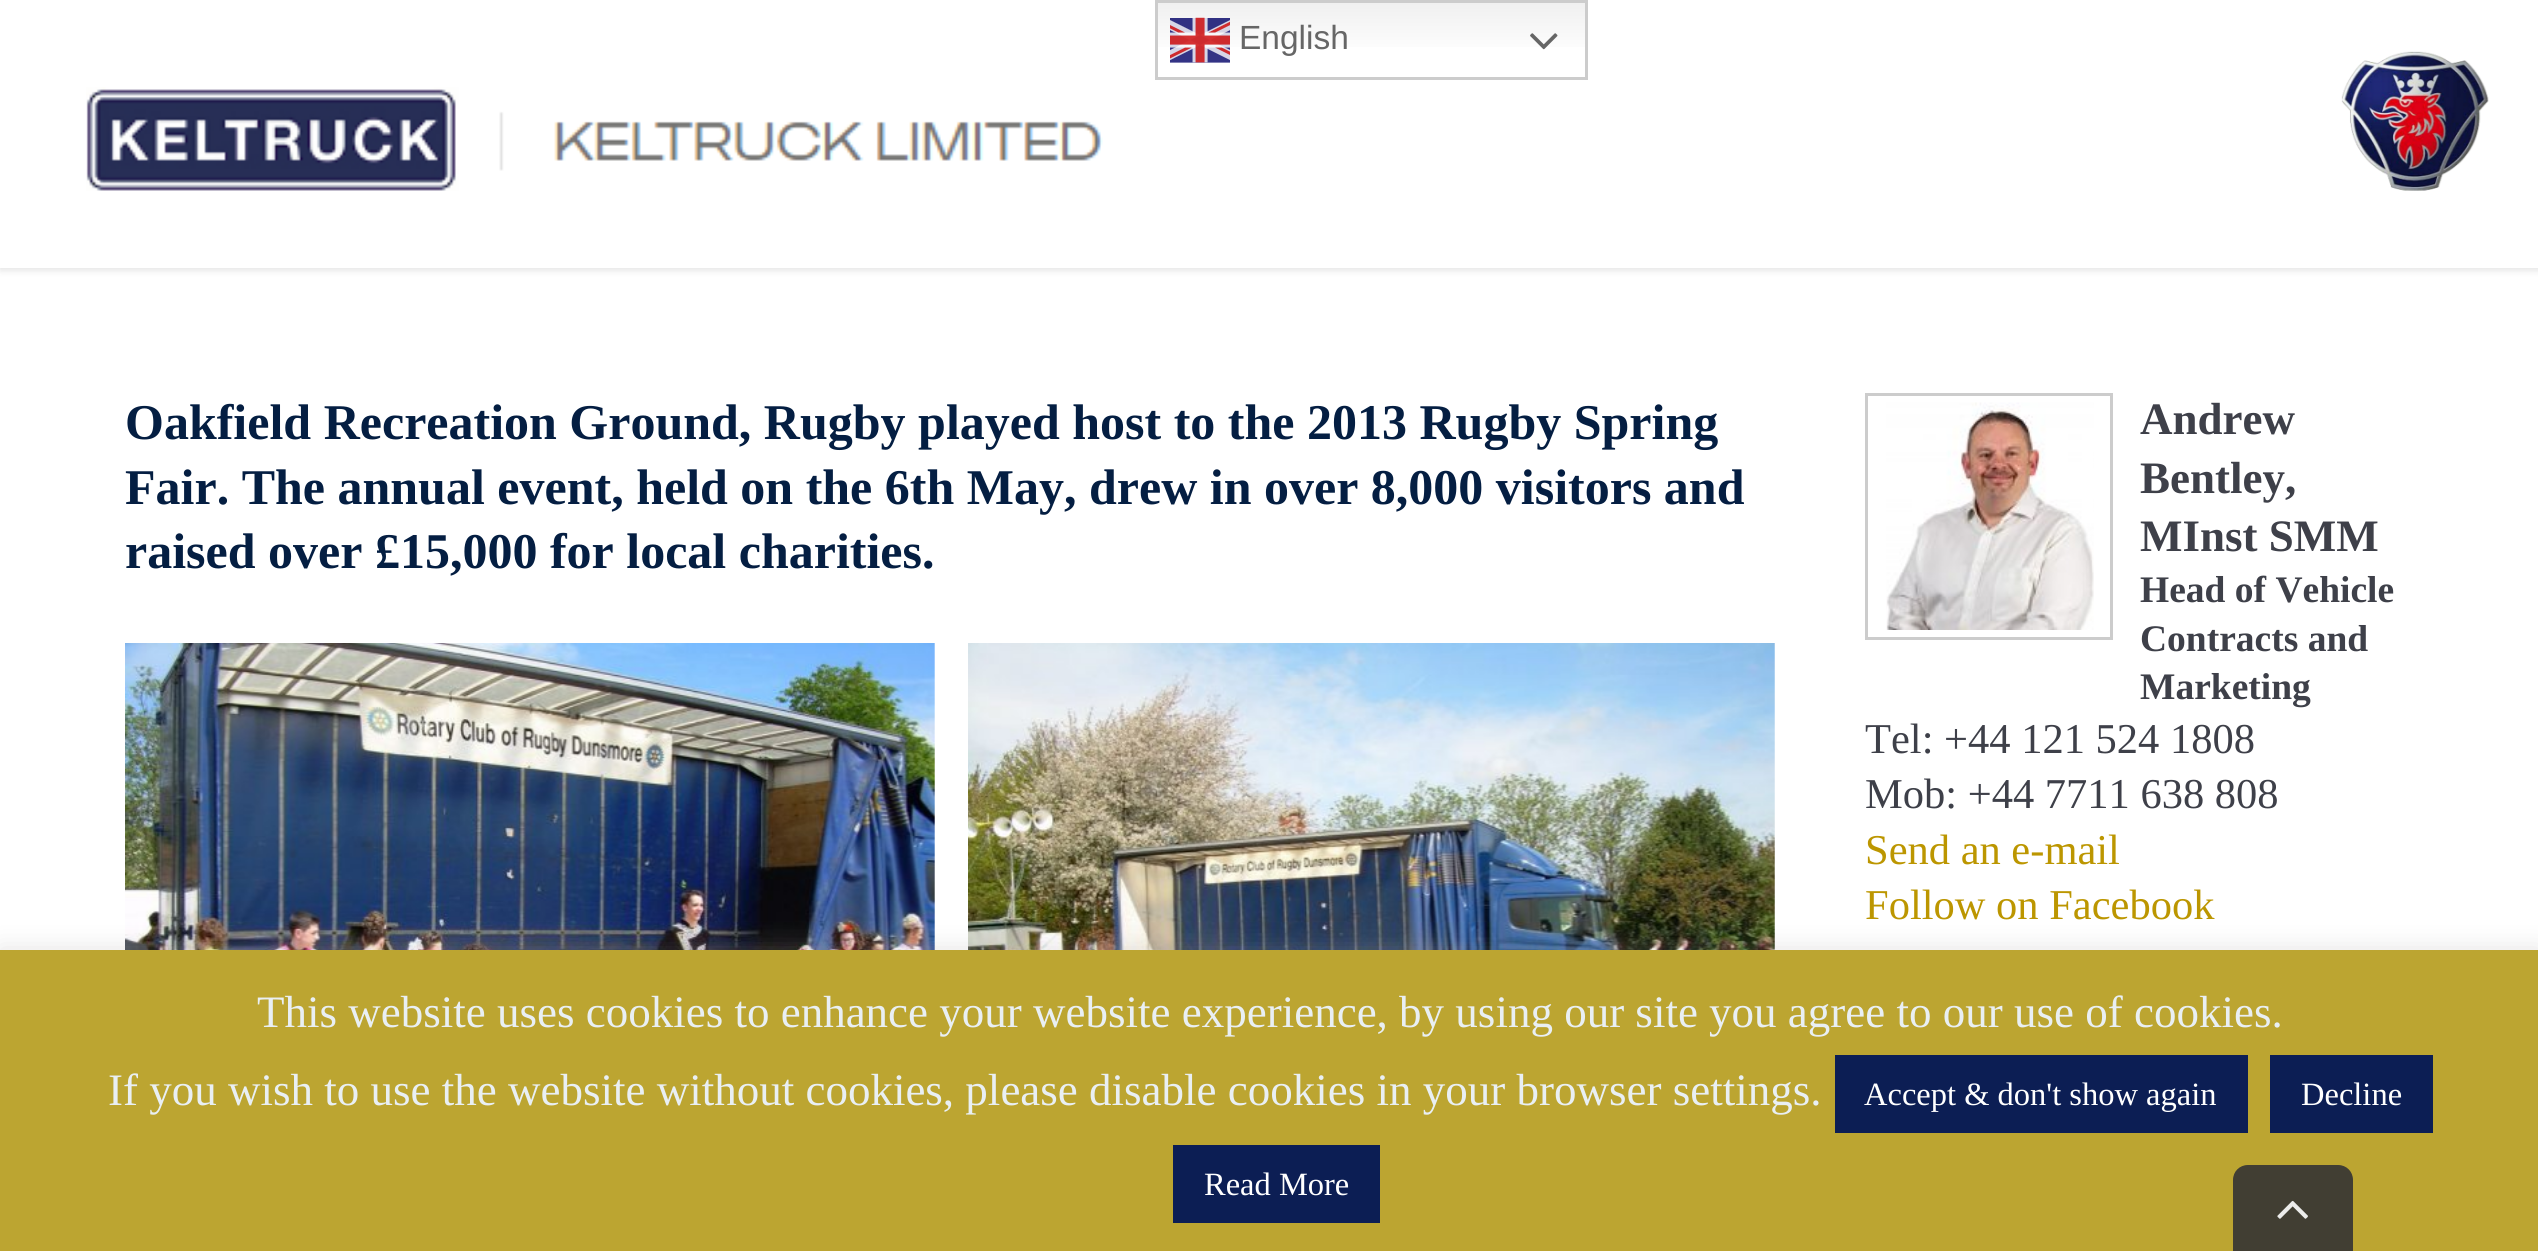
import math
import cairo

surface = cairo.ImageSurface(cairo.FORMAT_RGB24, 2538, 1251)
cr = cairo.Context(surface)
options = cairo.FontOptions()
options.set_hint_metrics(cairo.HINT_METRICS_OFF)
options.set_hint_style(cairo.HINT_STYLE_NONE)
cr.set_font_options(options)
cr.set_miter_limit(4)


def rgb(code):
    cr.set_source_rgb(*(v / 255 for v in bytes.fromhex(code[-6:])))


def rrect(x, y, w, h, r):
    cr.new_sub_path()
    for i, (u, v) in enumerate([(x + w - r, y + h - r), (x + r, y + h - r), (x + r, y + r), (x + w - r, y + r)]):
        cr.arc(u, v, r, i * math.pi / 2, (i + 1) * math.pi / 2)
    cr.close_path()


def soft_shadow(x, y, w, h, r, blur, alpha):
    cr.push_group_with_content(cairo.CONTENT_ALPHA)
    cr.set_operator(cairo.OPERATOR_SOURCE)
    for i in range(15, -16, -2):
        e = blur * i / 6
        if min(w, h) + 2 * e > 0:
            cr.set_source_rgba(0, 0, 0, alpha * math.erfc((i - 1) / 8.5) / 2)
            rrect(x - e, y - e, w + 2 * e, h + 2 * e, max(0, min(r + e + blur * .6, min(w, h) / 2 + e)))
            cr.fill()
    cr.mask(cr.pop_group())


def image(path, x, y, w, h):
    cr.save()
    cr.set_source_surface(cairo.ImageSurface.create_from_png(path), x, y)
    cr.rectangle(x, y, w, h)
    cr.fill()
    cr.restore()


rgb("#ffffff")
cr.paint()
rgb("#000000")
soft_shadow(0, 3, 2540, 267, 0, 4, 0.12)
rgb("#ffffff")
cr.rectangle(0, 0, 2538, 268)
cr.fill()
gradient = cairo.LinearGradient(1371, 0, 1371, 80)
gradient.add_color_stop_rgba(0, 0.937, 0.937, 0.937, 1)
gradient.add_color_stop_rgba(0.7, 1, 1, 1, 1)
cr.set_source(gradient)
cr.rectangle(1158, 3, 427, 44)
cr.fill()
cr.rectangle(1156.5, 1.5, 430, 77)
rgb("#cccccc")
cr.set_line_width(3)
cr.stroke()
image("img/1.png", 1170, 17, 60, 46)
image("img/2.png", 1530, 33, 28, 17)
image("img/5.png", 125, 643, 810, 307)
image("img/6.png", 968, 643, 807, 307)
rgb("#acabab")
soft_shadow(0, 948, 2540, 302, 0, 12.5, 0.3)
for x, y, w, h, color in [
    (0, 950, 2538, 301, "#bca531"),
    (1835, 1055, 413, 78, "#0c1e54"),
    (2270, 1055, 163, 78, "#0c1e54"),
    (1173, 1145, 207, 78, "#0c1e54"),
]:
    rgb(color)
    cr.rectangle(x, y, w, h)
    cr.fill()
image("img/3.png", 86, 87, 1017, 104)
image("img/4.png", 2341, 51, 148, 140)
cr.rectangle(1866.5, 394.5, 245, 244)
rgb("#cccccc")
cr.stroke()
image("img/7.png", 1886, 402, 208, 228)
rgb("#413e33")
cr.new_path()
cr.move_to(2248, 1165)
cr.line_to(2338, 1165)
cr.curve_to(2346.5, 1165, 2353, 1171.5, 2353, 1180)
cr.line_to(2353, 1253)
cr.line_to(2233, 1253)
cr.line_to(2233, 1180)
cr.curve_to(2233, 1171.5, 2239.5, 1165, 2248, 1165)
cr.close_path()
cr.fill()
image("img/8.png", 2277, 1200, 31, 19)
cr.select_font_face("Liberation Sans")
cr.set_font_size(33.5)
rgb("#666666")
cr.move_to(1239, 49)
cr.show_text("English")
cr.select_font_face("Liberation Serif")
cr.set_font_size(45)
rgb("#e9eff3")
cr.move_to(257, 1027)
cr.show_text("This website uses cookies to enhance your website experience, by using our site you agree to our use of cookies.")
cr.move_to(108, 1105)
cr.show_text("If you wish to use the website without cookies, please disable cookies in your browser settings.")
cr.set_font_size(32.5)
rgb("#ffffff")
for x, y, s in [
    (1864, 1105, "Accept & don't show again"),
    (2301, 1105, "Decline"),
    (1204, 1195, "Read More"),
]:
    cr.move_to(x, y)
    cr.show_text(s)
cr.select_font_face("Liberation Serif", cairo.FONT_SLANT_NORMAL, cairo.FONT_WEIGHT_BOLD)
cr.set_font_size(50)
rgb("#041e42")
for x, y, s in [
    (125, 439, "Oakfield Recreation Ground, Rugby played host to the 2013 Rugby Spring"),
    (125, 504, "Fair. The annual event, held on the 6th May, drew in over 8,000 visitors and"),
    (125, 568, "raised over £15,000 for local charities."),
]:
    cr.move_to(x, y)
    cr.show_text(s)
cr.set_font_size(45)
rgb("#3e4049")
for x, y, s in [
    (2140, 434, "Andrew"),
    (2140, 493, "Bentley,"),
    (2140, 551, "MInst SMM"),
]:
    cr.move_to(x, y)
    cr.show_text(s)
cr.set_font_size(37.5)
for x, y, s in [
    (2140, 602, "Head of Vehicle"),
    (2140, 651, "Contracts and"),
    (2140, 699, "Marketing"),
]:
    cr.move_to(x, y)
    cr.show_text(s)
cr.select_font_face("Liberation Serif")
cr.set_font_size(42.5)
cr.move_to(1865, 753)
cr.show_text("Tel: +44 121 524 1808")
cr.move_to(1865, 808)
cr.show_text("Mob: +44 7711 638 808")
rgb("#bc9600")
cr.move_to(1865, 864)
cr.show_text("Send an e-mail")
cr.move_to(1865, 919)
cr.show_text("Follow on Facebook")
surface.write_to_png("page.png")
